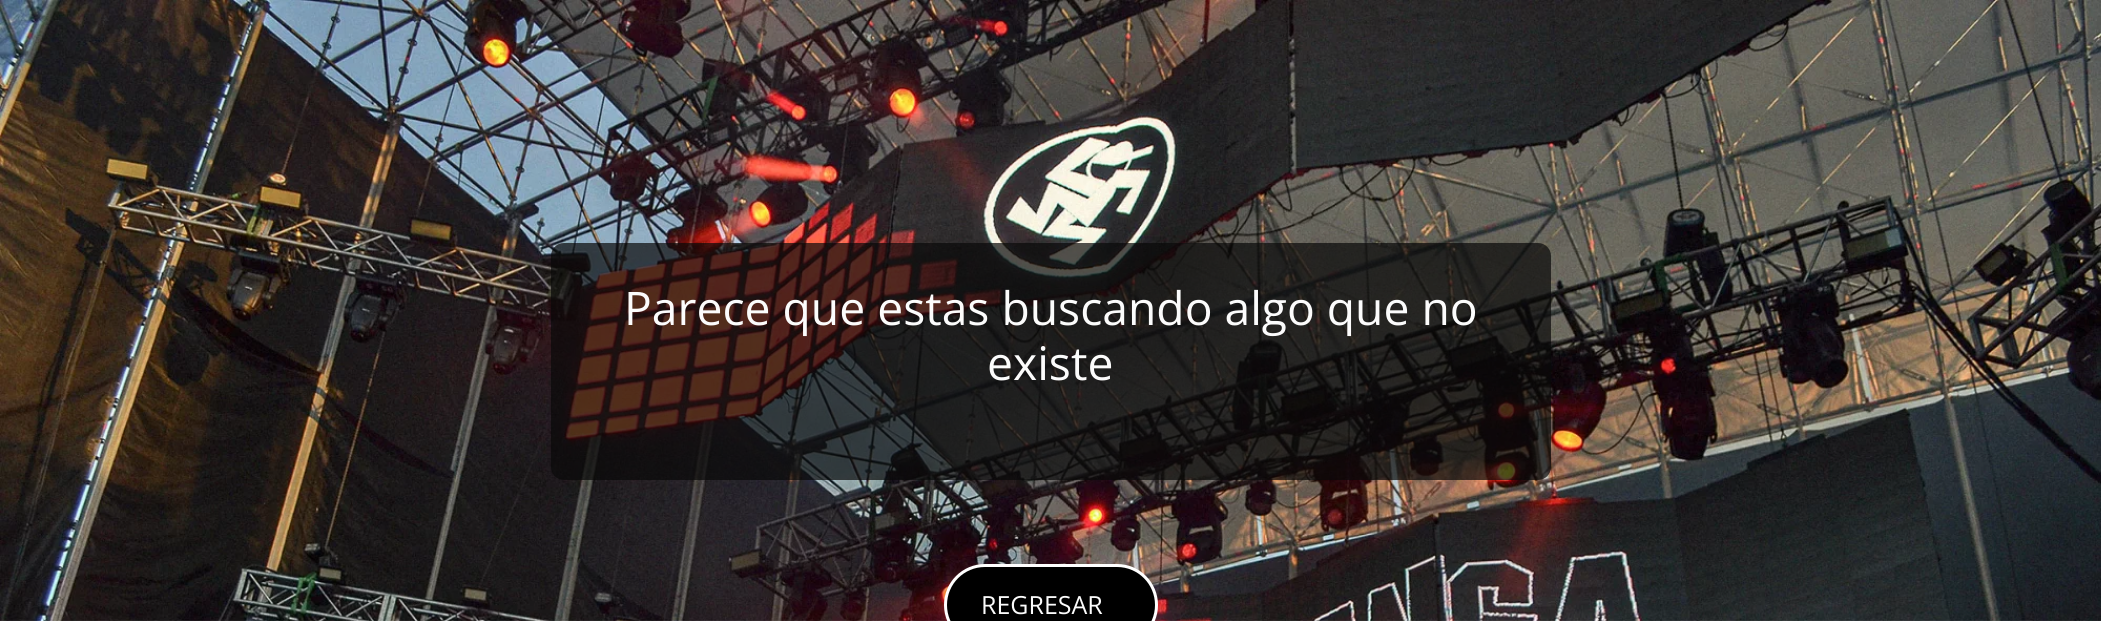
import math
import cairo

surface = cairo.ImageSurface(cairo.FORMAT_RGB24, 2101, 621)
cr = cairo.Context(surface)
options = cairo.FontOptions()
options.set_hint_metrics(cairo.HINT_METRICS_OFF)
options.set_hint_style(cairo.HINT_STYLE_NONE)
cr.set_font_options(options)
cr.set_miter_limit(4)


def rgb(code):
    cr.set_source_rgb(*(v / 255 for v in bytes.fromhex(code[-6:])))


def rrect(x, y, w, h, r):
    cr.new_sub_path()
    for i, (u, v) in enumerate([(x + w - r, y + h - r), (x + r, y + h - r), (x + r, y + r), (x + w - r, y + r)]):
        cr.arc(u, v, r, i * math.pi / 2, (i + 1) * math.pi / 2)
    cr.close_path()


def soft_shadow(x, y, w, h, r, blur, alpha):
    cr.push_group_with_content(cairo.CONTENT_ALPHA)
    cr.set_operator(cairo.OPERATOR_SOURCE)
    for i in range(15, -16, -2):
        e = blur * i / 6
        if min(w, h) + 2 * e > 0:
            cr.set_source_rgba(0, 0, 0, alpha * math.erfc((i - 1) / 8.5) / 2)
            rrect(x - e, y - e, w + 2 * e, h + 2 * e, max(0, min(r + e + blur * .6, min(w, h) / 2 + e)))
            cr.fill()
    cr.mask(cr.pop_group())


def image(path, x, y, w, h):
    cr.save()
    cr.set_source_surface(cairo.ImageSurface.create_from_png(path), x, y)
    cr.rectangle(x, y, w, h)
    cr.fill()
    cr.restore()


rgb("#ffffff")
cr.paint()
image("img/1.png", 0, 0, 2101, 621)
cr.set_source_rgba(0.039, 0.039, 0.039, 0.7)
rrect(551, 243, 1000, 237, 13)
cr.fill()
rgb("#ff3d97")
soft_shadow(956, 601, 189, 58, 29, 25, 0.5)
rgb("#000000")
rrect(945.5, 565.5, 211, 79, 39.5)
cr.fill_preserve()
rgb("#ffffff")
cr.set_line_width(3)
cr.stroke()
cr.select_font_face("Open Sans")
cr.set_font_size(46.25)
rgb("#fcfcfc")
cr.move_to(624, 325)
cr.show_text("Parece que estas buscando algo que no")
cr.move_to(987, 380)
cr.show_text("existe")
cr.set_font_size(25)
cr.move_to(981, 614)
cr.show_text("REGRESAR")
surface.write_to_png("page.png")
